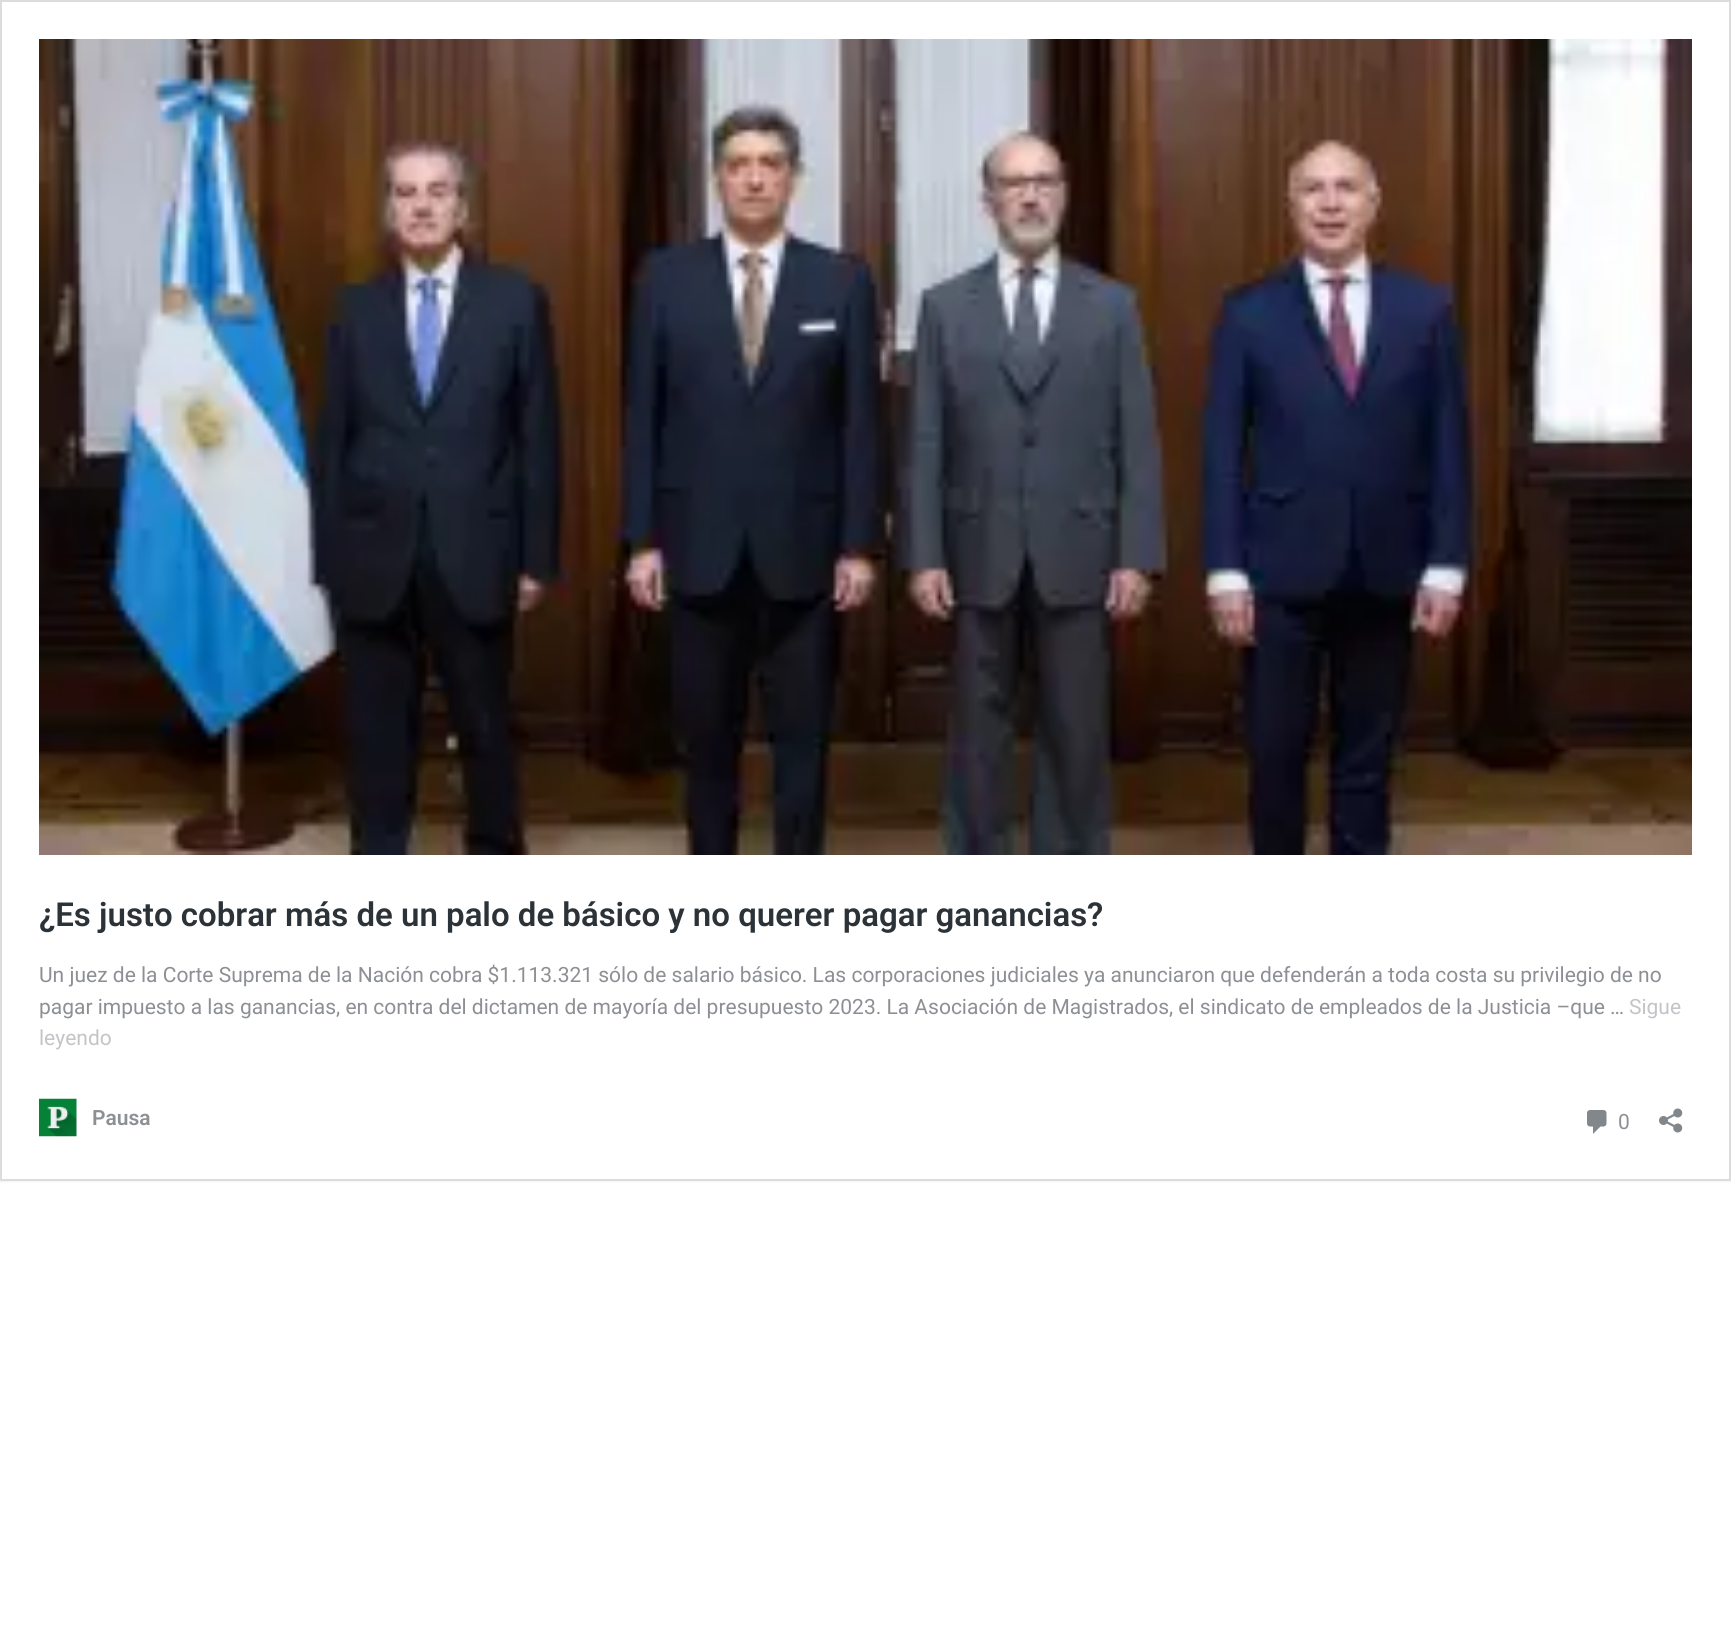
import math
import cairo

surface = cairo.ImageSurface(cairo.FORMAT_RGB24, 1731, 1625)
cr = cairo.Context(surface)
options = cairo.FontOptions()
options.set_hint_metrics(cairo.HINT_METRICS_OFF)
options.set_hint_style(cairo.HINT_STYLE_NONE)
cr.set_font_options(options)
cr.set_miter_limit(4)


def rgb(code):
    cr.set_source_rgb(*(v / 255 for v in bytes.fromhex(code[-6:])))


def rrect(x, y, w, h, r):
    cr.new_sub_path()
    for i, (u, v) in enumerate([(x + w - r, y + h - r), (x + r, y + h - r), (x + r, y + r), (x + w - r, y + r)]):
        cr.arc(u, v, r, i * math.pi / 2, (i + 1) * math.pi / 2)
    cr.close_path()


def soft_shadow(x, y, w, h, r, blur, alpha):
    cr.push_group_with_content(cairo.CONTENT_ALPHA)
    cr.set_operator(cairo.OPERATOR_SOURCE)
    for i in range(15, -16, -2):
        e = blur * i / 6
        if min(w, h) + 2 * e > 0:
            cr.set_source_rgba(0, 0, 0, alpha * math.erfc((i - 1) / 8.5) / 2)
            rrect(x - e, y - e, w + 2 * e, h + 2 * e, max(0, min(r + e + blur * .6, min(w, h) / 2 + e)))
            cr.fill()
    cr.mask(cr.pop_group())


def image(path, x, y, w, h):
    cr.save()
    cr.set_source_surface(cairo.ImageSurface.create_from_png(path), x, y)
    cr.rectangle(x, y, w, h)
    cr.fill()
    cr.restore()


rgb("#ffffff")
cr.paint()
rgb("#000000")
soft_shadow(0, 2, 1731, 1180, 0, 1, 0.05)
rgb("#ffffff")
cr.rectangle(1, 1, 1729, 1179)
cr.fill_preserve()
rgb("#dcdcde")
cr.stroke()
image("img/1.png", 39, 39, 1653, 816)
image("img/2.png", 39, 1098, 38, 39)
image("img/3.png", 1587, 1110, 20, 24)
image("img/4.png", 1659, 1108, 24, 25)
cr.select_font_face("Roboto SemiBold")
cr.set_font_size(33)
rgb("#2c3338")
cr.move_to(39, 926)
cr.show_text("¿Es justo cobrar más de un palo de básico y no querer pagar ganancias?")
cr.select_font_face("Roboto")
cr.set_font_size(21)
rgb("#8c8f94")
cr.move_to(39, 982)
cr.show_text("Un juez de la Corte Suprema de la Nación cobra $1.113.321 sólo de salario básico. Las corporaciones judiciales ya anunciaron que defenderán a toda costa su privilegio de no")
cr.move_to(39, 1014)
cr.show_text("pagar impuesto a las ganancias, en contra del dictamen de mayoría del presupuesto 2023. La Asociación de Magistrados, el sindicato de empleados de la Justicia –que …")
rgb("#c3c4c7")
cr.move_to(1629, 1014)
cr.show_text("Sigue")
cr.move_to(39, 1045)
cr.show_text("leyendo")
cr.select_font_face("Roboto SemiBold")
rgb("#8c8f94")
cr.move_to(92, 1125)
cr.show_text("Pausa")
cr.select_font_face("Roboto")
cr.move_to(1618, 1129)
cr.show_text("0")
surface.write_to_png("page.png")
